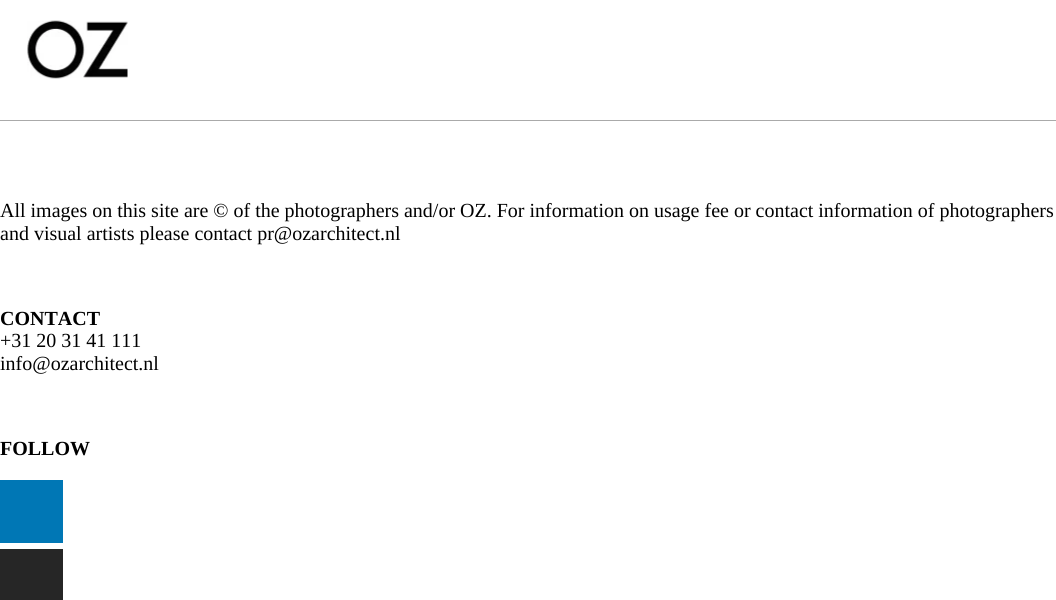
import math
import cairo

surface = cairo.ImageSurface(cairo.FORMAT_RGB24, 1056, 600)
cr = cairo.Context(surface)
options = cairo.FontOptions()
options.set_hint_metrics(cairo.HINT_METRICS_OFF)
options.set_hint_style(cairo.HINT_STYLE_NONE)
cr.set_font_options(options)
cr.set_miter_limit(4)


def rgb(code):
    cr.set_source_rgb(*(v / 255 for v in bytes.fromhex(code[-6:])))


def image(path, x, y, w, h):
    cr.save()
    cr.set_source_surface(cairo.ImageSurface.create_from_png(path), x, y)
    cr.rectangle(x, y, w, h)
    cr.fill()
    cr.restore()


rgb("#ffffff")
cr.paint()
rgb("#aaaaaa")
cr.rectangle(0, 120, 1056, 1)
cr.fill()
image("img/1.png", 27, 20, 101, 59)
rgb("#0077b5")
cr.rectangle(0, 480, 63, 63)
cr.fill()
rgb("#262626")
cr.rectangle(0, 549, 63, 51)
cr.fill()
cr.select_font_face("Liberation Serif")
cr.set_font_size(20)
rgb("#000000")
cr.move_to(0, 217)
cr.show_text("All images on this site are © of the photographers and/or OZ. For information on usage fee or contact information of photographers")
cr.move_to(0, 240)
cr.show_text("and visual artists please contact pr@ozarchitect.nl")
cr.select_font_face("Liberation Serif", cairo.FONT_SLANT_NORMAL, cairo.FONT_WEIGHT_BOLD)
cr.move_to(0, 325)
cr.show_text("CONTACT")
cr.select_font_face("Liberation Serif")
cr.move_to(0, 347)
cr.show_text("+31 20 31 41 111")
cr.move_to(0, 370)
cr.show_text("info@ozarchitect.nl")
cr.select_font_face("Liberation Serif", cairo.FONT_SLANT_NORMAL, cairo.FONT_WEIGHT_BOLD)
cr.move_to(0, 455)
cr.show_text("FOLLOW")
surface.write_to_png("page.png")
